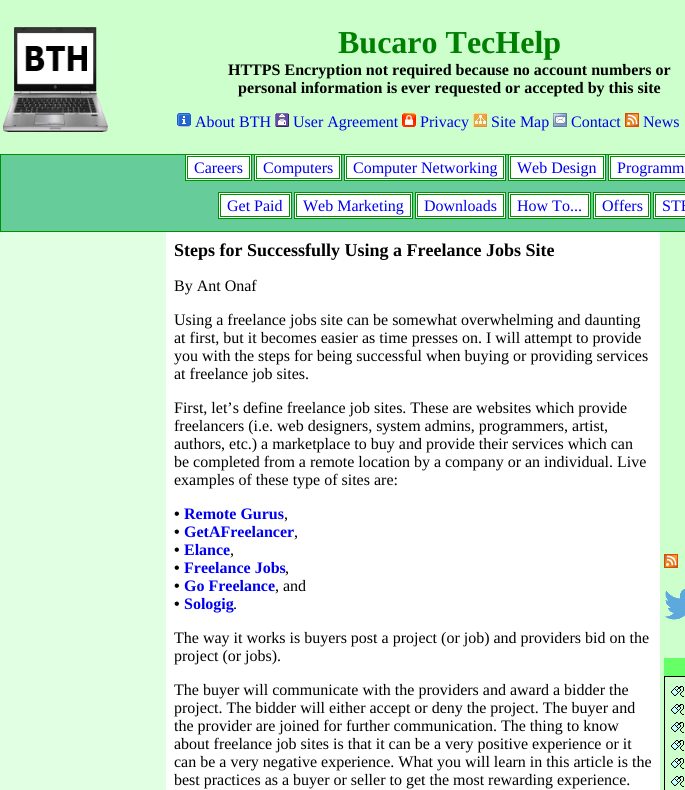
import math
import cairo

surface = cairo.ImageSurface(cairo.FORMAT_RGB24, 685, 790)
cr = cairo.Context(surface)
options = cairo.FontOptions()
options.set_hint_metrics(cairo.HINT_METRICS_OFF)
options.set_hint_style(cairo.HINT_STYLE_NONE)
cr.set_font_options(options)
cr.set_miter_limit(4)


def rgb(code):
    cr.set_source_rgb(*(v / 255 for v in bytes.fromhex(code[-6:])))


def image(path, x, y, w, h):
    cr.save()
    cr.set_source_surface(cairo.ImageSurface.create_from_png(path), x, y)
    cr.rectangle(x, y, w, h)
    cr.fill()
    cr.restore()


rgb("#ffffff")
cr.paint()
rgb("#ccffcc")
cr.rectangle(0, 0, 685, 154)
cr.fill()
image("img/1.png", 3, 27, 105, 105)
image("img/2.png", 177, 113, 14, 14)
image("img/3.png", 275, 113, 14, 14)
image("img/4.png", 402, 113, 14, 14)
image("img/5.png", 473, 113, 14, 14)
image("img/6.png", 553, 113, 14, 14)
image("img/7.png", 625, 113, 14, 14)
rgb("#66cc99")
cr.rectangle(0.5, 154.5, 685, 77)
cr.fill_preserve()
rgb("#009000")
cr.set_line_width(1)
cr.stroke()
rgb("#ffffff")
cr.rectangle(185.5, 154.5, 66, 26)
cr.fill_preserve()
rgb("#009000")
cr.stroke()
cr.rectangle(187.5, 156.5, 62, 22)
cr.stroke()
rgb("#ffffff")
cr.rectangle(254.5, 154.5, 87, 26)
cr.fill_preserve()
rgb("#009000")
cr.stroke()
cr.rectangle(256.5, 156.5, 83, 22)
cr.stroke()
rgb("#ffffff")
cr.rectangle(344.5, 154.5, 161, 26)
cr.fill_preserve()
rgb("#009000")
cr.stroke()
cr.rectangle(346.5, 156.5, 157, 22)
cr.stroke()
rgb("#ffffff")
cr.rectangle(508.5, 154.5, 97, 26)
cr.fill_preserve()
rgb("#009000")
cr.stroke()
cr.rectangle(510.5, 156.5, 93, 22)
cr.stroke()
rgb("#ffffff")
cr.rectangle(608.5, 154.5, 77, 26)
cr.fill_preserve()
rgb("#009000")
cr.stroke()
cr.rectangle(610.5, 156.5, 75, 22)
cr.stroke()
rgb("#ffffff")
cr.rectangle(218.5, 192.5, 73, 26)
cr.fill_preserve()
rgb("#009000")
cr.stroke()
cr.rectangle(220.5, 194.5, 69, 22)
cr.stroke()
rgb("#ffffff")
cr.rectangle(294.5, 192.5, 118, 26)
cr.fill_preserve()
rgb("#009000")
cr.stroke()
cr.rectangle(296.5, 194.5, 114, 22)
cr.stroke()
rgb("#ffffff")
cr.rectangle(415.5, 192.5, 90, 26)
cr.fill_preserve()
rgb("#009000")
cr.stroke()
cr.rectangle(417.5, 194.5, 86, 22)
cr.stroke()
rgb("#ffffff")
cr.rectangle(508.5, 192.5, 82, 26)
cr.fill_preserve()
rgb("#009000")
cr.stroke()
cr.rectangle(510.5, 194.5, 78, 22)
cr.stroke()
rgb("#ffffff")
cr.rectangle(593.5, 192.5, 57, 26)
cr.fill_preserve()
rgb("#009000")
cr.stroke()
cr.rectangle(595.5, 194.5, 53, 22)
cr.stroke()
rgb("#ffffff")
cr.rectangle(653.5, 192.5, 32, 26)
cr.fill_preserve()
rgb("#009000")
cr.stroke()
cr.rectangle(655.5, 194.5, 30, 22)
cr.stroke()
rgb("#e0ffe3")
cr.rectangle(0, 232, 166, 558)
cr.fill()
rgb("#ccffcc")
cr.rectangle(660, 232, 25, 558)
cr.fill()
image("img/7.png", 664, 554, 14, 14)
image("img/8.png", 665, 589, 20, 31)
rgb("#66ff66")
cr.rectangle(664, 658, 21, 18)
cr.fill()
cr.rectangle(664.5, 676.5, 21, 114)
rgb("#000000")
cr.stroke()
image("img/9.png", 671, 686, 13, 11)
image("img/9.png", 671, 704, 13, 11)
image("img/9.png", 671, 722, 13, 11)
image("img/9.png", 671, 740, 13, 11)
image("img/9.png", 671, 758, 13, 11)
image("img/9.png", 671, 776, 13, 11)
cr.select_font_face("Liberation Serif", cairo.FONT_SLANT_NORMAL, cairo.FONT_WEIGHT_BOLD)
cr.set_font_size(32)
rgb("#008000")
cr.move_to(338, 53)
cr.show_text("Bucaro TecHelp")
cr.set_font_size(16)
rgb("#000000")
cr.move_to(228, 75)
cr.show_text("HTTPS Encryption not required because no account numbers or")
cr.move_to(238, 93)
cr.show_text("personal information is ever requested or accepted by this site")
cr.select_font_face("Liberation Serif")
rgb("#0000ee")
for x, y, s in [
    (195, 127, "About BTH"),
    (293, 127, "User Agreement"),
    (420, 127, "Privacy"),
    (491, 127, "Site Map"),
    (571, 127, "Contact"),
    (643, 127, "News"),
    (194, 173, "Careers"),
    (263, 173, "Computers"),
    (353, 173, "Computer Networking"),
    (517, 173, "Web Design"),
    (617, 173, "Programm"),
    (227, 211, "Get Paid"),
    (303, 211, "Web Marketing"),
    (424, 211, "Downloads"),
    (517, 211, "How To..."),
    (602, 211, "Offers"),
    (662, 211, "STE"),
]:
    cr.move_to(x, y)
    cr.show_text(s)
cr.select_font_face("Liberation Serif", cairo.FONT_SLANT_NORMAL, cairo.FONT_WEIGHT_BOLD)
cr.set_font_size(18)
rgb("#000000")
cr.move_to(174, 256)
cr.show_text("Steps for Successfully Using a Freelance Jobs Site")
cr.select_font_face("Liberation Serif")
cr.set_font_size(16)
for x, y, s in [
    (174, 291, "By Ant Onaf"),
    (174, 325, "Using a freelance jobs site can be somewhat overwhelming and daunting"),
    (174, 343, "at first, but it becomes easier as time presses on. I will attempt to provide"),
    (174, 361, "you with the steps for being successful when buying or providing services"),
    (174, 379, "at freelance job sites."),
    (174, 413, "First, let’s define freelance job sites. These are websites which provide"),
    (174, 431, "freelancers (i.e. web designers, system admins, programmers, artist,"),
    (174, 449, "authors, etc.) a marketplace to buy and provide their services which can"),
    (174, 467, "be completed from a remote location by a company or an individual. Live"),
    (174, 485, "examples of these type of sites are:"),
]:
    cr.move_to(x, y)
    cr.show_text(s)
cr.select_font_face("Liberation Serif", cairo.FONT_SLANT_NORMAL, cairo.FONT_WEIGHT_BOLD)
cr.move_to(174, 519)
cr.show_text("•")
rgb("#0000ee")
cr.move_to(184, 519)
cr.show_text("Remote Gurus")
cr.select_font_face("Liberation Serif")
rgb("#000000")
cr.move_to(284, 519)
cr.show_text(",")
cr.select_font_face("Liberation Serif", cairo.FONT_SLANT_NORMAL, cairo.FONT_WEIGHT_BOLD)
cr.move_to(174, 537)
cr.show_text("•")
rgb("#0000ee")
cr.move_to(184, 537)
cr.show_text("GetAFreelancer")
cr.select_font_face("Liberation Serif")
rgb("#000000")
cr.move_to(294, 537)
cr.show_text(",")
cr.select_font_face("Liberation Serif", cairo.FONT_SLANT_NORMAL, cairo.FONT_WEIGHT_BOLD)
cr.move_to(174, 555)
cr.show_text("•")
rgb("#0000ee")
cr.move_to(184, 555)
cr.show_text("Elance")
cr.select_font_face("Liberation Serif")
rgb("#000000")
cr.move_to(230, 555)
cr.show_text(",")
cr.select_font_face("Liberation Serif", cairo.FONT_SLANT_NORMAL, cairo.FONT_WEIGHT_BOLD)
cr.move_to(174, 573)
cr.show_text("•")
rgb("#0000ee")
cr.move_to(184, 573)
cr.show_text("Freelance Jobs")
cr.select_font_face("Liberation Serif")
rgb("#000000")
cr.move_to(285, 573)
cr.show_text(",")
cr.select_font_face("Liberation Serif", cairo.FONT_SLANT_NORMAL, cairo.FONT_WEIGHT_BOLD)
cr.move_to(174, 591)
cr.show_text("•")
rgb("#0000ee")
cr.move_to(184, 591)
cr.show_text("Go Freelance")
cr.select_font_face("Liberation Serif")
rgb("#000000")
cr.move_to(275, 591)
cr.show_text(", and")
cr.select_font_face("Liberation Serif", cairo.FONT_SLANT_NORMAL, cairo.FONT_WEIGHT_BOLD)
cr.move_to(174, 609)
cr.show_text("•")
rgb("#0000ee")
cr.move_to(184, 609)
cr.show_text("Sologig")
cr.select_font_face("Liberation Serif")
rgb("#000000")
for x, y, s in [
    (233, 609, "."),
    (174, 643, "The way it works is buyers post a project (or job) and providers bid on the"),
    (174, 661, "project (or jobs)."),
    (174, 695, "The buyer will communicate with the providers and award a bidder the"),
    (174, 713, "project. The bidder will either accept or deny the project. The buyer and"),
    (174, 731, "the provider are joined for further communication. The thing to know"),
    (174, 749, "about freelance job sites is that it can be a very positive experience or it"),
    (174, 767, "can be a very negative experience. What you will learn in this article is the"),
    (174, 785, "best practices as a buyer or seller to get the most rewarding experience."),
]:
    cr.move_to(x, y)
    cr.show_text(s)
surface.write_to_png("page.png")
